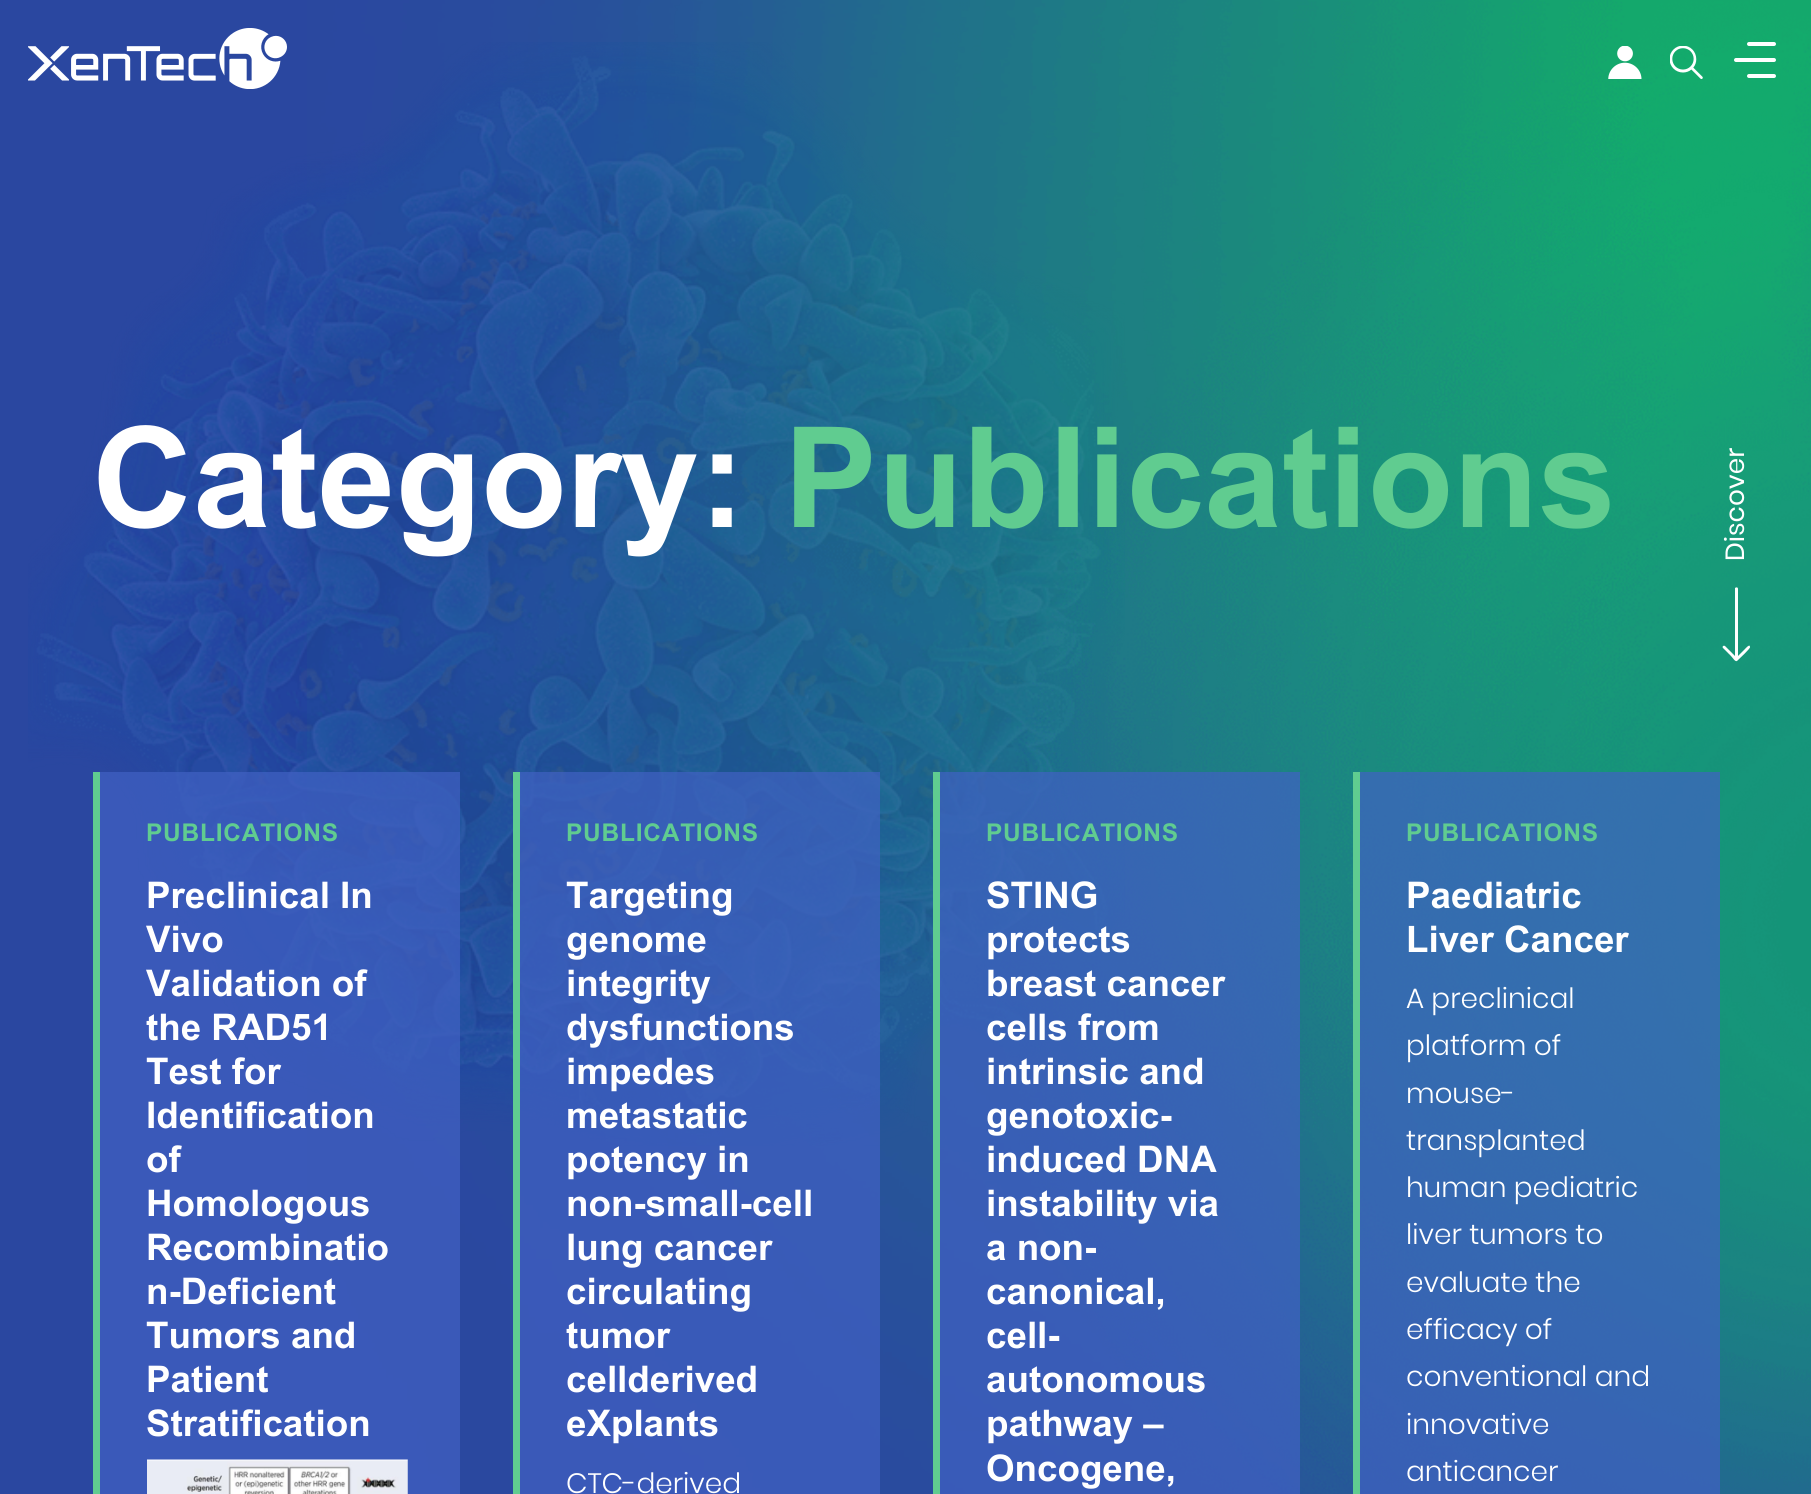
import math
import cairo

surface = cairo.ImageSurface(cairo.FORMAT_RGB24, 1811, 1494)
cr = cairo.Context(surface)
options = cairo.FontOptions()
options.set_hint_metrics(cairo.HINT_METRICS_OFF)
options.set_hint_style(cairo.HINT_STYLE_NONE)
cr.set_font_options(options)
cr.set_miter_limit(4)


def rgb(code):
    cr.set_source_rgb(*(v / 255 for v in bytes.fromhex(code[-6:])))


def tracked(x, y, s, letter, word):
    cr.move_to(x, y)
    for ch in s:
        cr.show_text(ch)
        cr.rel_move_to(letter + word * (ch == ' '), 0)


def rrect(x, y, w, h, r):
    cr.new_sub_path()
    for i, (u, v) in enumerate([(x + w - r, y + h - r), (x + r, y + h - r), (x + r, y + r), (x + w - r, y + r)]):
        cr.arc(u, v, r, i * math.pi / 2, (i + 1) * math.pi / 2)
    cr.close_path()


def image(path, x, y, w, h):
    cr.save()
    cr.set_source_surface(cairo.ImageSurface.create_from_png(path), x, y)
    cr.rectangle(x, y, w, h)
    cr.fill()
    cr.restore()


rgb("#2a47a0")
cr.paint()
image("img/2.png", 28, 42, 1097, 1104)
image("img/1.png", 307, 0, 1504, 1494)
image("img/3.png", 28, 28, 259, 61)
image("img/4.png", 1608, 46, 34, 33)
image("img/5.png", 1670, 46, 33, 33)
rgb("#ffffff")
rrect(1747, 42, 29, 4, 2)
cr.fill()
rrect(1734, 58, 42, 4, 2)
cr.fill()
rrect(1747, 74, 29, 4, 2)
cr.fill()
cr.set_source_rgba(0.255, 0.384, 0.765, 0.7)
cr.rectangle(100, 772, 360, 722)
cr.fill()
rgb("#60cc90")
cr.rectangle(93, 772, 7, 722)
cr.fill()
image("img/6.png", 147, 1459, 261, 35)
cr.set_source_rgba(0.255, 0.384, 0.765, 0.7)
cr.rectangle(520, 772, 360, 722)
cr.fill()
rgb("#60cc90")
cr.rectangle(513, 772, 7, 722)
cr.fill()
cr.set_source_rgba(0.255, 0.384, 0.765, 0.7)
cr.rectangle(940, 772, 360, 722)
cr.fill()
rgb("#60cc90")
cr.rectangle(933, 772, 7, 722)
cr.fill()
cr.set_source_rgba(0.255, 0.384, 0.765, 0.7)
cr.rectangle(1360, 772, 360, 722)
cr.fill()
rgb("#60cc90")
cr.rectangle(1353, 772, 7, 722)
cr.fill()
rgb("#ffffff")
cr.new_path()
cr.move_to(1737, 661)
cr.curve_to(1739, 659, 1751, 648, 1750, 647)
cr.curve_to(1750, 643, 1745, 649, 1745, 649)
cr.line_to(1738, 656)
cr.line_to(1738, 589)
cr.curve_to(1738, 587, 1736, 587, 1735, 588)
cr.line_to(1735, 656)
cr.line_to(1725, 646)
cr.curve_to(1723, 645, 1722, 647, 1723, 648)
cr.line_to(1731, 656)
cr.curve_to(1733, 658, 1735, 662, 1737, 661)
cr.close_path()
cr.fill()
cr.select_font_face("Arial", cairo.FONT_SLANT_NORMAL, cairo.FONT_WEIGHT_BOLD)
cr.set_font_size(140)
cr.move_to(92, 527)
cr.show_text("Category:")
rgb("#60cc90")
cr.move_to(784, 527)
cr.show_text("Publications")
cr.set_font_size(24.5)
tracked(146, 841, "PUBLICATIONS", 0.75, 0)
cr.set_font_size(36.75)
rgb("#ffffff")
for x, y, s in [
    (146, 908, "Preclinical In"),
    (146, 952, "Vivo"),
    (146, 996, "Validation of"),
    (146, 1040, "the RAD51"),
    (146, 1084, "Test for"),
    (146, 1128, "Identification"),
    (146, 1172, "of"),
    (146, 1216, "Homologous"),
    (146, 1260, "Recombinatio"),
    (146, 1304, "n-Deficient"),
    (146, 1348, "Tumors and"),
    (146, 1392, "Patient"),
    (146, 1436, "Stratification"),
]:
    cr.move_to(x, y)
    cr.show_text(s)
cr.set_font_size(24.5)
rgb("#60cc90")
tracked(566, 841, "PUBLICATIONS", 0.75, 0)
cr.set_font_size(36.75)
rgb("#ffffff")
for x, y, s in [
    (566, 908, "Targeting"),
    (566, 952, "genome"),
    (566, 996, "integrity"),
    (566, 1040, "dysfunctions"),
    (566, 1084, "impedes"),
    (566, 1128, "metastatic"),
    (566, 1172, "potency in"),
    (566, 1216, "non-small-cell"),
    (566, 1260, "lung cancer"),
    (566, 1304, "circulating"),
    (566, 1348, "tumor"),
    (566, 1392, "cellderived"),
    (566, 1436, "eXplants"),
]:
    cr.move_to(x, y)
    cr.show_text(s)
cr.select_font_face("Poppins Light")
cr.set_font_size(28)
cr.move_to(566, 1493)
cr.show_text("CTC-derived")
cr.select_font_face("Arial", cairo.FONT_SLANT_NORMAL, cairo.FONT_WEIGHT_BOLD)
cr.set_font_size(24.5)
rgb("#60cc90")
tracked(986, 841, "PUBLICATIONS", 0.75, 0)
cr.set_font_size(36.75)
rgb("#ffffff")
for x, y, s in [
    (986, 908, "STING"),
    (986, 952, "protects"),
    (986, 996, "breast cancer"),
    (986, 1040, "cells from"),
    (986, 1084, "intrinsic and"),
    (986, 1128, "genotoxic-"),
    (986, 1172, "induced DNA"),
    (986, 1216, "instability via"),
    (986, 1260, "a non-"),
    (986, 1304, "canonical,"),
    (986, 1348, "cell-"),
    (986, 1392, "autonomous"),
    (986, 1436, "pathway –"),
    (986, 1481, "Oncogene,"),
]:
    cr.move_to(x, y)
    cr.show_text(s)
cr.set_font_size(24.5)
rgb("#60cc90")
tracked(1406, 841, "PUBLICATIONS", 0.75, 0)
cr.set_font_size(36.75)
rgb("#ffffff")
cr.move_to(1406, 908)
cr.show_text("Paediatric")
cr.move_to(1406, 952)
cr.show_text("Liver Cancer")
cr.select_font_face("Poppins Light")
cr.set_font_size(28)
for x, y, s in [
    (1406, 1008, "A preclinical"),
    (1406, 1055, "platform of"),
    (1406, 1103, "mouse-"),
    (1406, 1150, "transplanted"),
    (1406, 1197, "human pediatric"),
    (1406, 1244, "liver tumors to"),
    (1406, 1292, "evaluate the"),
    (1406, 1339, "efficacy of"),
    (1406, 1386, "conventional and"),
    (1406, 1434, "innovative"),
    (1406, 1481, "anticancer"),
]:
    cr.move_to(x, y)
    cr.show_text(s)
cr.select_font_face("Poppins")
cr.set_font_size(26.25)
cr.save()
cr.translate(1744, 561)
cr.rotate(-90 * math.pi / 180)
cr.move_to(0, 0)
cr.show_text("Discover")
cr.restore()
surface.write_to_png("page.png")
